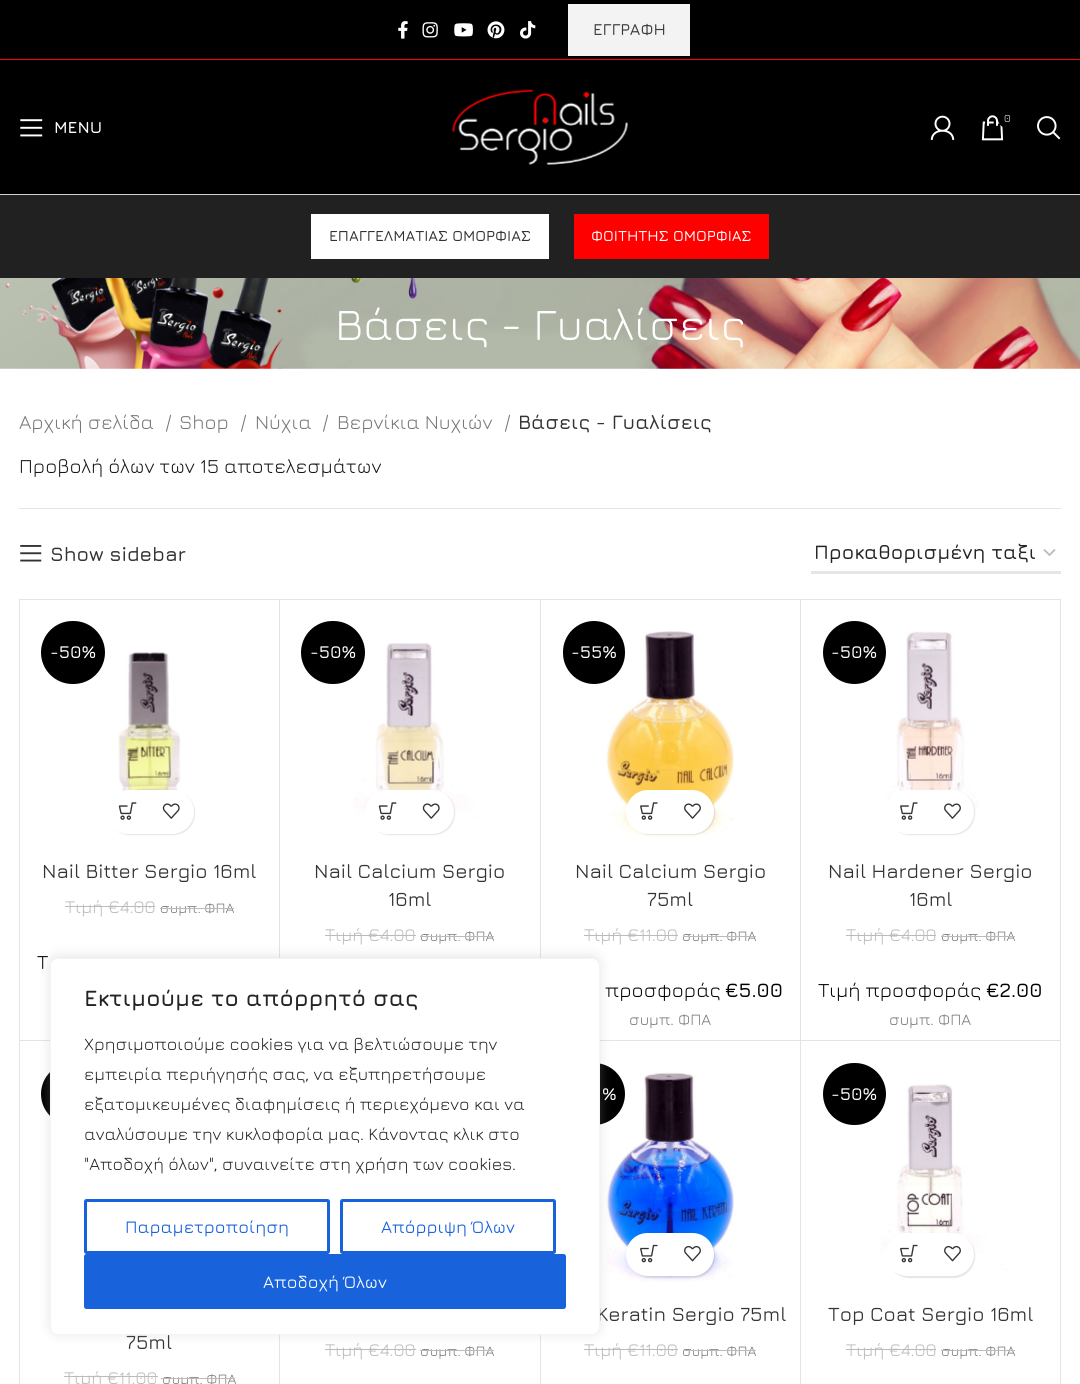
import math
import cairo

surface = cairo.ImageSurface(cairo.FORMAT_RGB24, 1080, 1384)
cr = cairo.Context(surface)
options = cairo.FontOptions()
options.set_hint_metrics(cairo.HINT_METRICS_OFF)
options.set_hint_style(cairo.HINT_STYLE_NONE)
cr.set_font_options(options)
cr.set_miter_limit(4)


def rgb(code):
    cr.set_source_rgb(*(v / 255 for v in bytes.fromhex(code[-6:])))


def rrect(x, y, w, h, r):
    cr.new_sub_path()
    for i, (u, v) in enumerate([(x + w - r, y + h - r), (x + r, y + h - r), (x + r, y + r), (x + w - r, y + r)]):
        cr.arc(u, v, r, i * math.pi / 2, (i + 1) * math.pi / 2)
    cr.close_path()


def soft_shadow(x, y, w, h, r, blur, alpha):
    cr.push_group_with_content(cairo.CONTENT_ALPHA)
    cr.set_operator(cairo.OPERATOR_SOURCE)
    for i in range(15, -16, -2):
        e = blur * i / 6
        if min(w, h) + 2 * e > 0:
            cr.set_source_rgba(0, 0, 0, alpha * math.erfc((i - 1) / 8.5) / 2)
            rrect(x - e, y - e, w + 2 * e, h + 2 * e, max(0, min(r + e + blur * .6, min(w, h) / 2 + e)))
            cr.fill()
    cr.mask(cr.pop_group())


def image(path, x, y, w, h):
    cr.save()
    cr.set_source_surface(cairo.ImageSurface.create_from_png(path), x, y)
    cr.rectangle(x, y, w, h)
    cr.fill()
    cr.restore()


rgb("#ffffff")
cr.paint()
rgb("#000000")
cr.rectangle(0, 0, 1080, 59)
cr.fill()
rgb("#ff0101")
cr.rectangle(0, 59, 1080, 1)
cr.fill()
image("img/1.png", 398, 21, 10, 18)
image("img/2.png", 422, 22, 16, 16)
image("img/3.png", 454, 23, 19, 14)
image("img/4.png", 487, 21, 18, 18)
image("img/5.png", 520, 21, 16, 18)
for x, y, w, h, color in [
    (568, 4, 122, 52, "#f3f3f3"),
    (0, 60, 1080, 134, "#000000"),
    (0, 194, 1080, 1, "#d1d1d1"),
]:
    rgb(color)
    cr.rectangle(x, y, w, h)
    cr.fill()
image("img/6.png", 452, 89, 176, 76)
image("img/7.png", 930, 115, 25, 25)
image("img/8.png", 981, 115, 23, 26)
rgb("#000000")
rrect(998, 109, 18, 19, 9)
cr.fill()
image("img/9.png", 1037, 116, 24, 24)
image("img/10.png", 20, 119, 23, 18)
for x, y, w, h, color in [
    (0, 195, 1080, 83, "#212121"),
    (311, 214, 238, 45, "#ffffff"),
    (574, 214, 195, 45, "#ff0000"),
]:
    rgb(color)
    cr.rectangle(x, y, w, h)
    cr.fill()
image("img/11.png", 0, 278, 1080, 91)
rgb("#e4e4e4")
cr.rectangle(19, 508, 1042, 1)
cr.fill()
image("img/12.png", 20, 545, 22, 17)
cr.new_path()
cr.move_to(1044, 549.5)
cr.line_to(1049.5, 555)
cr.line_to(1055, 549.5)
rgb("#bbbbbb")
cr.set_line_width(1.8)
cr.stroke()
rgb("#e6e6e6")
cr.rectangle(811, 571, 250, 3)
cr.fill()
rgb("#e4e4e4")
cr.rectangle(19, 599, 1, 785)
cr.fill()
cr.new_path()
cr.move_to(20, 599)
cr.line_to(280, 599)
cr.line_to(279, 600)
cr.line_to(20, 600)
cr.close_path()
cr.fill()
cr.set_source_rgba(0, 0, 0, 0.11)
cr.new_path()
cr.move_to(280, 599)
cr.line_to(280, 1041)
cr.line_to(279, 1040)
cr.line_to(279, 600)
cr.close_path()
cr.fill()
cr.new_path()
cr.move_to(280, 1041)
cr.line_to(20, 1041)
cr.line_to(20, 1040)
cr.line_to(279, 1040)
cr.close_path()
cr.fill()
rgb("#000000")
rrect(41, 621, 64, 63, 31.5)
cr.fill()
image("img/13.png", 118, 652, 63, 141)
rgb("#000000")
soft_shadow(108, 791, 87, 44, 22, 0.5, 0.1)
rgb("#ffffff")
rrect(106, 790, 88, 44, 22)
cr.fill()
image("img/14.png", 118, 802, 19, 18)
image("img/15.png", 162, 803, 18, 16)
rgb("#bbbbbb")
cr.rectangle(65, 906, 90, 1)
cr.fill()
rgb("#e4e4e4")
cr.new_path()
cr.move_to(280, 599)
cr.line_to(541, 599)
cr.line_to(540, 600)
cr.line_to(280, 600)
cr.close_path()
cr.fill()
cr.set_source_rgba(0, 0, 0, 0.11)
cr.new_path()
cr.move_to(541, 599)
cr.line_to(541, 1041)
cr.line_to(540, 1040)
cr.line_to(540, 600)
cr.close_path()
cr.fill()
image("img/16.png", 353, 643, 126, 177)
rgb("#000000")
rrect(301, 621, 64, 63, 31.5)
cr.fill()
rgb("#000000")
soft_shadow(368, 791, 87, 44, 22, 0.5, 0.1)
rgb("#ffffff")
rrect(366, 790, 88, 44, 22)
cr.fill()
image("img/14.png", 378, 802, 19, 18)
image("img/15.png", 422, 803, 18, 16)
rgb("#bbbbbb")
cr.rectangle(325, 935, 91, 1)
cr.fill()
rgb("#e4e4e4")
cr.new_path()
cr.move_to(541, 599)
cr.line_to(801, 599)
cr.line_to(800, 600)
cr.line_to(541, 600)
cr.close_path()
cr.fill()
cr.set_source_rgba(0, 0, 0, 0.11)
cr.new_path()
cr.move_to(801, 599)
cr.line_to(801, 1041)
cr.line_to(800, 1040)
cr.line_to(800, 600)
cr.close_path()
cr.fill()
cr.new_path()
cr.move_to(801, 1041)
cr.line_to(541, 1041)
cr.line_to(541, 1040)
cr.line_to(800, 1040)
cr.close_path()
cr.fill()
image("img/17.png", 606, 631, 128, 207)
rgb("#000000")
rrect(563, 621, 62, 63, 31)
cr.fill()
rgb("#000000")
soft_shadow(628, 791, 87, 44, 22, 0.5, 0.1)
rgb("#ffffff")
rrect(626, 790, 88, 44, 22)
cr.fill()
image("img/18.png", 640, 802, 18, 18)
image("img/19.png", 684, 803, 17, 16)
rgb("#bbbbbb")
cr.rectangle(584, 935, 44, 1)
cr.fill()
cr.rectangle(628, 935, 50, 1)
cr.fill()
rgb("#e4e4e4")
cr.new_path()
cr.move_to(801, 599)
cr.line_to(1061, 599)
cr.line_to(1060, 600)
cr.line_to(801, 600)
cr.close_path()
cr.fill()
cr.set_source_rgba(0, 0, 0, 0.11)
cr.new_path()
cr.move_to(1061, 599)
cr.line_to(1061, 1041)
cr.line_to(1060, 1040)
cr.line_to(1060, 600)
cr.close_path()
cr.fill()
cr.new_path()
cr.move_to(1061, 1041)
cr.line_to(801, 1041)
cr.line_to(801, 1040)
cr.line_to(1060, 1040)
cr.close_path()
cr.fill()
rgb("#000000")
cr.arc(854.5, 652.5, 31.5, 0, 2 * math.pi)
cr.fill()
image("img/20.png", 887, 631, 91, 197)
rgb("#000000")
soft_shadow(888, 791, 87, 44, 22, 0.5, 0.1)
rgb("#ffffff")
rrect(886, 790, 88, 44, 22)
cr.fill()
image("img/18.png", 900, 802, 18, 18)
image("img/19.png", 944, 803, 17, 16)
rgb("#bbbbbb")
cr.rectangle(846, 935, 90, 1)
cr.fill()
rgb("#e4e4e4")
cr.new_path()
cr.move_to(280, 1041)
cr.line_to(280, 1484)
cr.line_to(279, 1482)
cr.line_to(279, 1041)
cr.close_path()
cr.fill()
rgb("#000000")
rrect(41, 1063, 64, 62, 31)
cr.fill()
rgb("#bbbbbb")
cr.rectangle(64, 1376, 94, 1)
cr.fill()
rgb("#e4e4e4")
cr.new_path()
cr.move_to(541, 1041)
cr.line_to(541, 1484)
cr.line_to(540, 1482)
cr.line_to(540, 1041)
cr.close_path()
cr.fill()
rgb("#bbbbbb")
cr.rectangle(325, 1349, 91, 1)
cr.fill()
rgb("#e4e4e4")
cr.new_path()
cr.move_to(801, 1041)
cr.line_to(801, 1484)
cr.line_to(800, 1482)
cr.line_to(800, 1041)
cr.close_path()
cr.fill()
image("img/21.png", 606, 1072, 128, 210)
rgb("#000000")
cr.arc(594, 1094, 31, 0, 2 * math.pi)
cr.fill()
rgb("#000000")
soft_shadow(628, 1234, 87, 44, 22, 0.5, 0.1)
rgb("#ffffff")
rrect(626, 1233, 88, 43, 21.5)
cr.fill()
image("img/22.png", 640, 1244, 18, 19)
image("img/23.png", 684, 1245, 17, 17)
rgb("#bbbbbb")
cr.rectangle(584, 1349, 44, 1)
cr.fill()
cr.rectangle(628, 1349, 50, 1)
cr.fill()
rgb("#e4e4e4")
cr.new_path()
cr.move_to(1061, 1041)
cr.line_to(1061, 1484)
cr.line_to(1060, 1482)
cr.line_to(1060, 1041)
cr.close_path()
cr.fill()
image("img/24.png", 880, 1084, 127, 187)
rgb("#000000")
rrect(823, 1063, 63, 62, 31)
cr.fill()
rgb("#000000")
soft_shadow(888, 1234, 87, 44, 22, 0.5, 0.1)
rgb("#ffffff")
rrect(886, 1233, 88, 43, 21.5)
cr.fill()
image("img/22.png", 900, 1244, 18, 19)
image("img/23.png", 944, 1245, 17, 17)
rgb("#bbbbbb")
cr.rectangle(846, 1349, 90, 1)
cr.fill()
cr.select_font_face("Jura SemiBold")
cr.set_font_size(16.25)
rgb("#3e3e3e")
cr.move_to(593, 35)
cr.show_text("ΕΓΓΡΑΦΗ")
cr.select_font_face("Jura")
cr.set_font_size(11)
rgb("#ffffff")
cr.move_to(1004, 122)
cr.show_text("0")
cr.select_font_face("Jura", cairo.FONT_SLANT_NORMAL, cairo.FONT_WEIGHT_BOLD)
cr.set_font_size(16.25)
cr.move_to(54, 133)
cr.show_text("MENU")
cr.select_font_face("Jura SemiBold")
cr.set_font_size(15)
rgb("#333333")
cr.move_to(329, 241)
cr.show_text("ΕΠΑΓΓΕΛΜΑΤΙΑΣ ΟΜΟΡΦΙΑΣ")
rgb("#ffffff")
cr.move_to(591, 241)
cr.show_text("ΦΟΙΤΗΤΗΣ ΟΜΟΡΦΙΑΣ")
cr.select_font_face("Jura")
cr.set_font_size(45)
cr.move_to(335, 340)
cr.show_text("Βάσεις - Γυαλίσεις")
cr.set_font_size(20)
rgb("#777777")
for x, y, s in [
    (19, 429, "Αρχική σελίδα"),
    (165, 429, "/"),
    (179, 429, "Shop"),
    (240, 429, "/"),
    (255, 429, "Νύχια"),
    (322, 429, "/"),
    (337, 429, "Βερνίκια Νυχιών"),
    (504, 429, "/"),
]:
    cr.move_to(x, y)
    cr.show_text(s)
cr.select_font_face("Jura SemiBold")
rgb("#333333")
cr.move_to(518, 429)
cr.show_text("Βάσεις - Γυαλίσεις")
cr.select_font_face("Jura")
rgb("#161616")
cr.move_to(19, 473)
cr.show_text("Προβολή όλων των 15 αποτελεσμάτων")
cr.select_font_face("Jura SemiBold")
rgb("#333333")
cr.move_to(50, 561)
cr.show_text("Show sidebar")
rgb("#242424")
cr.move_to(814, 559)
cr.show_text("Προκαθορισμένη ταξι")
cr.set_font_size(17.5)
rgb("#ffffff")
cr.move_to(50, 658)
cr.show_text("-50%")
cr.select_font_face("Jura Medium")
cr.set_font_size(20)
rgb("#333333")
cr.move_to(42, 878)
cr.show_text("Nail Bitter Sergio 16ml")
cr.select_font_face("Jura")
cr.set_font_size(18)
rgb("#bbbbbb")
cr.move_to(65, 913)
cr.show_text("Τιμή €4.00")
cr.set_font_size(14.5)
rgb("#777777")
cr.move_to(160, 913)
cr.show_text("συμπ. ΦΠΑ")
rgb("#bbbbbb")
cr.rectangle(160, 908, 74, 1)
cr.fill()
cr.set_font_size(20)
rgb("#000000")
cr.move_to(37, 969)
cr.show_text("Τ")
cr.select_font_face("Jura SemiBold")
cr.set_font_size(17.5)
rgb("#ffffff")
cr.move_to(310, 658)
cr.show_text("-50%")
cr.select_font_face("Jura Medium")
cr.set_font_size(20)
rgb("#333333")
cr.move_to(314, 878)
cr.show_text("Nail Calcium Sergio")
cr.move_to(388, 906)
cr.show_text("16ml")
cr.select_font_face("Jura")
cr.set_font_size(18)
rgb("#bbbbbb")
cr.move_to(325, 941)
cr.show_text("Τιμή €4.00")
cr.set_font_size(14.5)
rgb("#777777")
cr.move_to(420, 941)
cr.show_text("συμπ. ΦΠΑ")
rgb("#bbbbbb")
cr.rectangle(420, 936, 74, 1)
cr.fill()
cr.select_font_face("Jura SemiBold")
cr.set_font_size(17.5)
rgb("#ffffff")
cr.move_to(571, 658)
cr.show_text("-55%")
cr.select_font_face("Jura Medium")
cr.set_font_size(20)
rgb("#333333")
cr.move_to(575, 878)
cr.show_text("Nail Calcium Sergio")
cr.move_to(647, 906)
cr.show_text("75ml")
cr.select_font_face("Jura")
cr.set_font_size(18)
rgb("#bbbbbb")
cr.move_to(584, 941)
cr.show_text("Τιμή")
cr.move_to(627, 941)
cr.show_text("€11.00")
cr.set_font_size(14.5)
rgb("#777777")
cr.move_to(682, 941)
cr.show_text("συμπ. ΦΠΑ")
rgb("#bbbbbb")
cr.rectangle(683, 936, 73, 1)
cr.fill()
cr.set_font_size(20)
rgb("#000000")
cr.move_to(605, 997)
cr.show_text("προσφοράς")
cr.select_font_face("Jura SemiBold")
cr.move_to(725, 997)
cr.show_text("€5.00")
cr.select_font_face("Jura")
cr.set_font_size(16)
rgb("#777777")
cr.move_to(629, 1025)
cr.show_text("συμπ. ΦΠΑ")
cr.select_font_face("Jura SemiBold")
cr.set_font_size(17.5)
rgb("#ffffff")
cr.move_to(831, 658)
cr.show_text("-50%")
cr.select_font_face("Jura Medium")
cr.set_font_size(20)
rgb("#333333")
cr.move_to(828, 878)
cr.show_text("Nail Hardener Sergio")
cr.move_to(909, 906)
cr.show_text("16ml")
cr.select_font_face("Jura")
cr.set_font_size(18)
rgb("#bbbbbb")
cr.move_to(846, 941)
cr.show_text("Τιμή €4.00")
cr.set_font_size(14.5)
rgb("#777777")
cr.move_to(941, 941)
cr.show_text("συμπ. ΦΠΑ")
rgb("#bbbbbb")
cr.rectangle(941, 936, 74, 1)
cr.fill()
cr.set_font_size(20)
rgb("#000000")
cr.move_to(818, 997)
cr.show_text("Τιμή προσφοράς")
cr.select_font_face("Jura SemiBold")
cr.move_to(986, 997)
cr.show_text("€2.00")
cr.select_font_face("Jura")
cr.set_font_size(16)
rgb("#777777")
cr.move_to(889, 1025)
cr.show_text("συμπ. ΦΠΑ")
cr.select_font_face("Jura Medium")
cr.set_font_size(20)
rgb("#333333")
cr.move_to(126, 1349)
cr.show_text("75ml")
cr.select_font_face("Jura")
cr.set_font_size(18)
rgb("#bbbbbb")
cr.move_to(64, 1384)
cr.show_text("Τιμή €11.00")
cr.set_font_size(14.5)
rgb("#777777")
cr.move_to(162, 1384)
cr.show_text("συμπ. ΦΠΑ")
rgb("#bbbbbb")
cr.rectangle(161, 1378, 74, 1)
cr.fill()
cr.set_font_size(18)
cr.move_to(325, 1356)
cr.show_text("Τιμή €4.00")
cr.set_font_size(14.5)
rgb("#777777")
cr.move_to(420, 1356)
cr.show_text("συμπ. ΦΠΑ")
rgb("#bbbbbb")
cr.rectangle(420, 1350, 74, 1)
cr.fill()
cr.select_font_face("Jura SemiBold")
cr.set_font_size(17.5)
rgb("#ffffff")
cr.move_to(602, 1100)
cr.show_text("%")
cr.select_font_face("Jura Medium")
cr.set_font_size(20)
rgb("#333333")
cr.move_to(597, 1321)
cr.show_text("Keratin Sergio 75ml")
cr.select_font_face("Jura")
cr.set_font_size(18)
rgb("#bbbbbb")
cr.move_to(584, 1356)
cr.show_text("Τιμή")
cr.move_to(627, 1356)
cr.show_text("€11.00")
cr.set_font_size(14.5)
rgb("#777777")
cr.move_to(682, 1356)
cr.show_text("συμπ. ΦΠΑ")
rgb("#bbbbbb")
cr.rectangle(683, 1350, 73, 1)
cr.fill()
cr.select_font_face("Jura SemiBold")
cr.set_font_size(17.5)
rgb("#ffffff")
cr.move_to(831, 1100)
cr.show_text("-50%")
cr.select_font_face("Jura Medium")
cr.set_font_size(20)
rgb("#333333")
cr.move_to(828, 1321)
cr.show_text("Top Coat Sergio 16ml")
cr.select_font_face("Jura")
cr.set_font_size(18)
rgb("#bbbbbb")
cr.move_to(846, 1356)
cr.show_text("Τιμή €4.00")
cr.set_font_size(14.5)
rgb("#777777")
cr.move_to(941, 1356)
cr.show_text("συμπ. ΦΠΑ")
rgb("#bbbbbb")
cr.rectangle(941, 1350, 74, 1)
cr.fill()
rgb("#acabab")
soft_shadow(50, 956, 550, 378, 8, 6, 0.3)
rgb("#ffffff")
rrect(50.5, 958.5, 549, 376, 7.5)
cr.fill_preserve()
rgb("#f4f4f4")
cr.set_line_width(1)
cr.stroke()
cr.select_font_face("Jura", cairo.FONT_SLANT_NORMAL, cairo.FONT_WEIGHT_BOLD)
cr.set_font_size(22.5)
rgb("#242424")
cr.move_to(84, 1006)
cr.show_text("Εκτιμούμε το απόρρητό σας")
cr.select_font_face("Jura")
cr.set_font_size(17.5)
for x, y, s in [
    (84, 1050, "Χρησιμοποιούμε cookies για να βελτιώσουμε την"),
    (84, 1080, "εμπειρία περιήγησής σας, να εξυπηρετήσουμε"),
    (84, 1110, "εξατομικευμένες διαφημίσεις ή περιεχόμενο και να"),
    (84, 1140, "αναλύσουμε την κυκλοφορία μας. Κάνοντας κλικ στο"),
    (84, 1170, "\"Αποδοχή όλων\", συναινείτε στη χρήση των cookies."),
]:
    cr.move_to(x, y)
    cr.show_text(s)
rrect(85.5, 1200.5, 243, 52, 1)
rgb("#1863dc")
cr.set_line_width(3)
cr.stroke()
cr.select_font_face("Jura Medium")
cr.move_to(125, 1233)
cr.show_text("Παραμετροποίηση")
rrect(341.5, 1200.5, 213, 52, 1)
cr.stroke()
cr.move_to(381, 1233)
cr.show_text("Απόρριψη Όλων")
rrect(85.5, 1255.5, 479, 52, 1)
cr.fill_preserve()
cr.stroke()
rgb("#ffffff")
cr.move_to(263, 1288)
cr.show_text("Αποδοχή Όλων")
surface.write_to_png("page.png")
